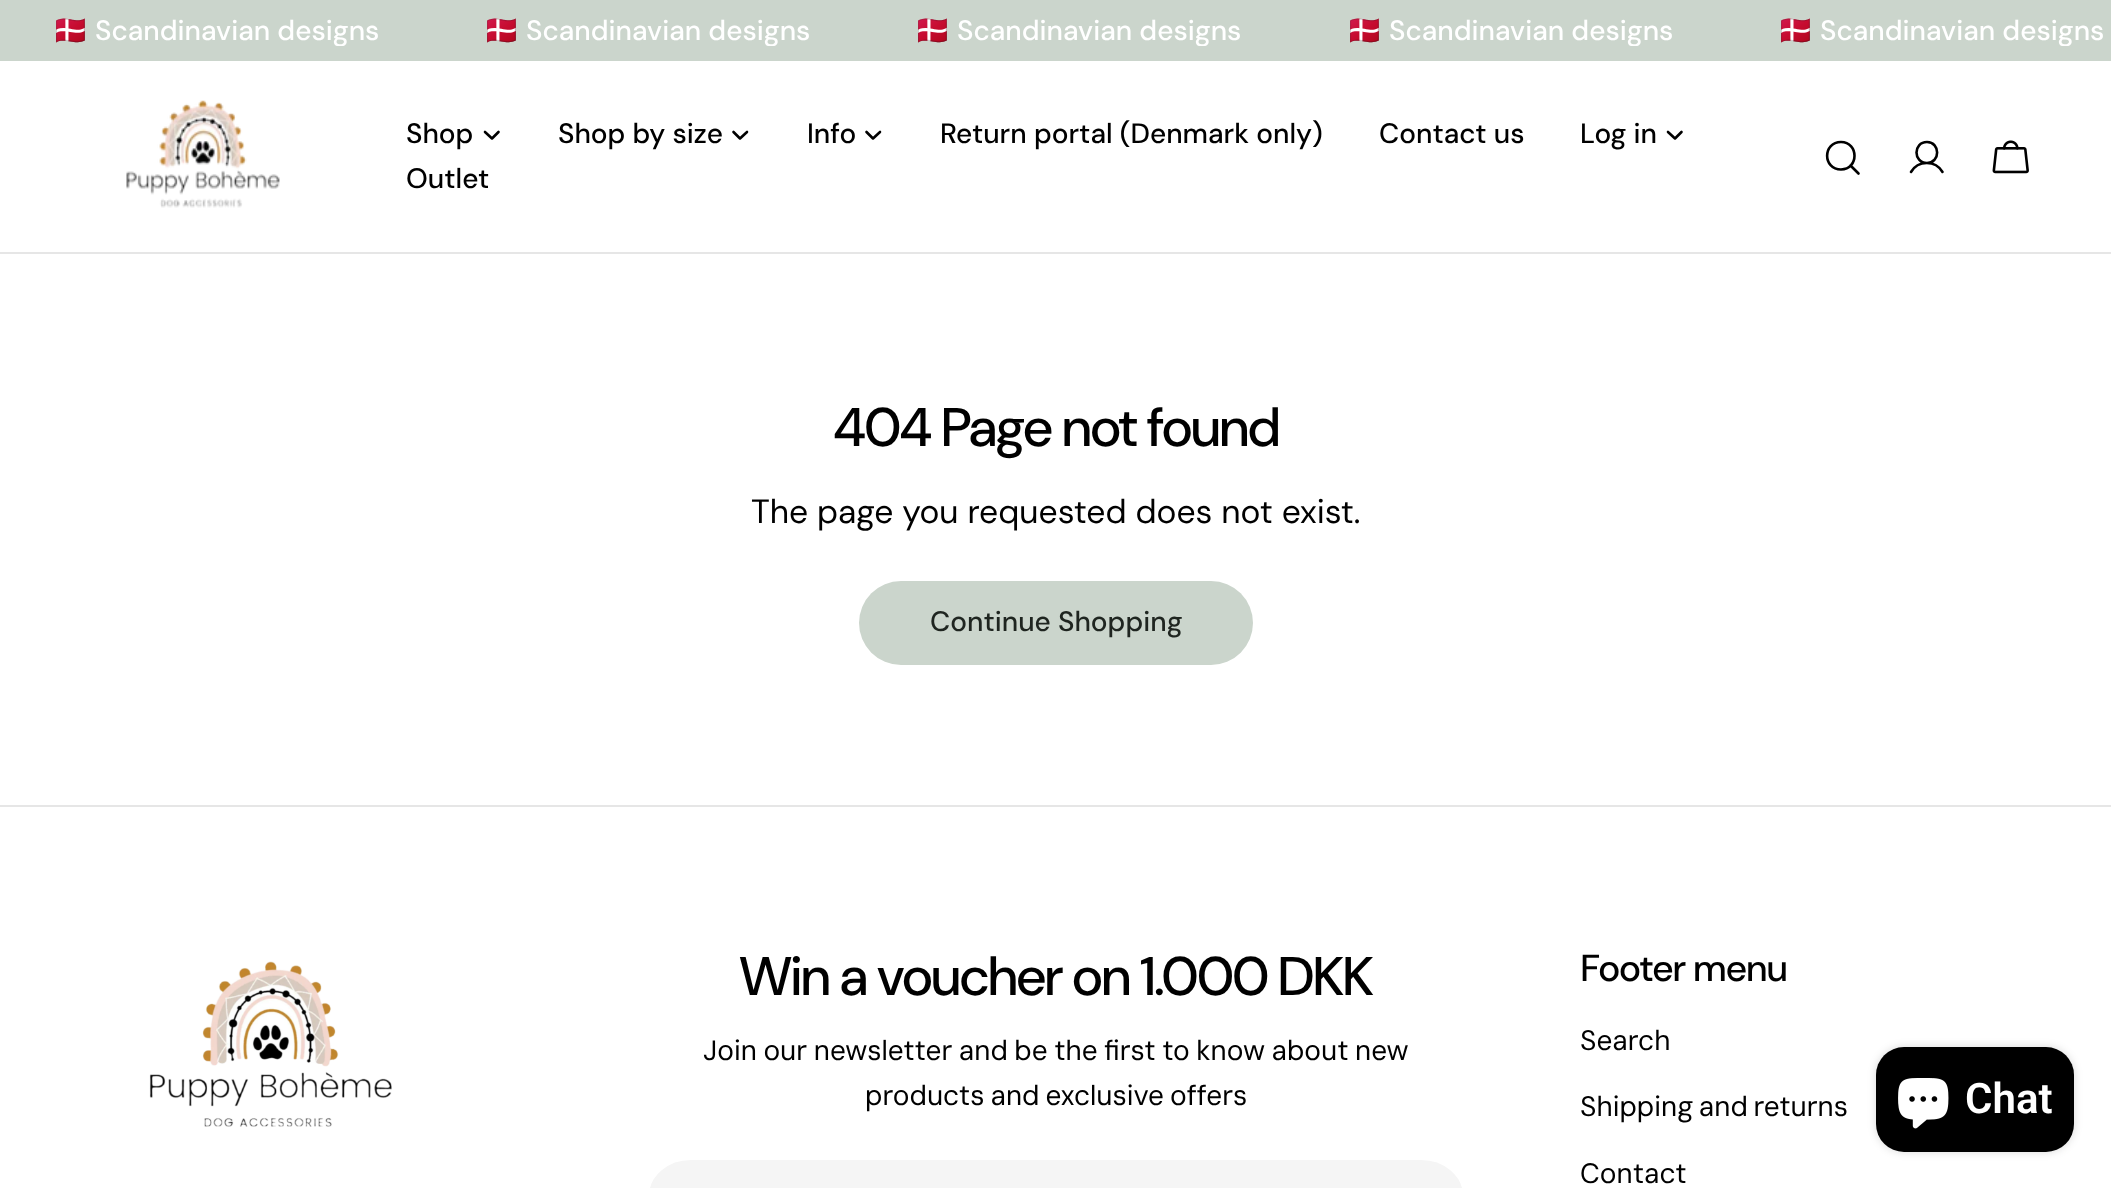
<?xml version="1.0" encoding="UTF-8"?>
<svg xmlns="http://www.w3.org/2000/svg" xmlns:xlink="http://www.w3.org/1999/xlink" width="2111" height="1188">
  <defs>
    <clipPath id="clip1"><rect y="18" width="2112" height="28" /></clipPath>
  </defs>
  <rect width="100%" height="100%" fill="#ffffff" />
  <rect width="2111" height="61" fill="#cbd5cc" />
  <rect y="252" width="2111" height="2" fill="#e6e6e6" />
  <image x="126" y="100" width="154" height="108" xlink:href="image1.png" />
  <path d="M 498.5 132 l -6.5 6.5 l -7 -6.5" fill="none" stroke="#000000" stroke-width="2.6" stroke-linecap="round" stroke-linejoin="round" />
  <path d="M 747 132 l -7 6.5 l -6.5 -6.5" fill="none" stroke="#000000" stroke-width="2.6" stroke-linecap="round" stroke-linejoin="round" />
  <path d="M 880 132 l -7 6.5 l -6.5 -6.5" fill="none" stroke="#000000" stroke-width="2.6" stroke-linecap="round" stroke-linejoin="round" />
  <path d="M 1681.5 132 l -6.5 6.5 l -7 -6.5" fill="none" stroke="#000000" stroke-width="2.6" stroke-linecap="round" stroke-linejoin="round" />
  <path d="M 1841 169.5 c 18 0 18 -27.5 0 -27.5 c -18.5 0 -18.5 27.5 0 27.5 z m 9.5 -4 l 8 8" fill="none" stroke="#000000" stroke-width="2.6" stroke-linecap="round" stroke-linejoin="round" />
  <path d="M 1927 163 c 13.5 0 13.5 -21 0 -21 c -14 0 -14 21 0 21 z m -16 9 c 7 -12 24.5 -12 31.5 0" fill="none" stroke="#000000" stroke-width="2.6" stroke-linecap="round" stroke-linejoin="round" />
  <image x="1992" y="140" width="37" height="34" xlink:href="image2.png" />
  <rect x="859" y="581" width="394" height="84" rx="42" fill="#cbd5cc" />
  <rect y="805" width="2111" height="2" fill="#e6e6e6" />
  <image x="149" y="961" width="243" height="166" xlink:href="image3.png" />
  <rect x="650" y="1161" width="812" height="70" rx="41" fill="#f5f5f5" stroke="#f5f5f5" stroke-width="2" />
  <rect x="1876" y="1047" width="198" height="105" rx="28" fill="#000000" fill-opacity="0.15" filter="blur(4.5px)" />
  <rect x="1876" y="1047" width="198" height="105" rx="28" fill="#000000" />
  <image x="1898" y="1078" width="51" height="51" xlink:href="image4.png" />
  <g clip-path="url(#clip1)">
    <text x="53" y="40" style="font-family: Noto Color Emoji; font-size: 28px; fill: #ffffff">🇩🇰</text>
    <text x="95" y="40" style="font-family: 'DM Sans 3'; font-size: 28px; font-weight: 500; fill: #ffffff">Scandinavian designs</text>
    <text x="484" y="40" style="font-family: Noto Color Emoji; font-size: 28px; fill: #ffffff">🇩🇰</text>
    <text x="526" y="40" style="font-family: 'DM Sans 3'; font-size: 28px; font-weight: 500; fill: #ffffff">Scandinavian designs</text>
    <text x="915" y="40" style="font-family: Noto Color Emoji; font-size: 28px; fill: #ffffff">🇩🇰</text>
    <text x="957" y="40" style="font-family: 'DM Sans 3'; font-size: 28px; font-weight: 500; fill: #ffffff">Scandinavian designs</text>
    <text x="1347" y="40" style="font-family: Noto Color Emoji; font-size: 28px; fill: #ffffff">🇩🇰</text>
    <text x="1389" y="40" style="font-family: 'DM Sans 3'; font-size: 28px; font-weight: 500; fill: #ffffff">Scandinavian designs</text>
    <text x="1778" y="40" style="font-family: Noto Color Emoji; font-size: 28px; fill: #ffffff">🇩🇰</text>
    <text x="1820" y="40" style="font-family: 'DM Sans 3'; font-size: 28px; font-weight: 500; fill: #ffffff">Scandinavian designs</text>
  </g>
  <text x="406" y="143" style="font-family: 'DM Sans 3'; font-size: 28px; font-weight: 500; fill: #000000">Shop</text>
  <text x="558" y="143" style="font-family: 'DM Sans 3'; font-size: 28px; font-weight: 500; fill: #000000">Shop by size</text>
  <text x="807" y="143" style="font-family: 'DM Sans 3'; font-size: 28px; font-weight: 500; fill: #000000">Info</text>
  <text x="940" y="143" style="font-family: 'DM Sans 3'; font-size: 28px; font-weight: 500; fill: #000000">Return portal (Denmark only)</text>
  <text x="1379" y="143" style="font-family: 'DM Sans 3'; font-size: 28px; font-weight: 500; fill: #000000">Contact us</text>
  <text x="1580" y="143" style="font-family: 'DM Sans 3'; font-size: 28px; font-weight: 500; fill: #000000">Log in</text>
  <text x="406" y="188" style="font-family: 'DM Sans 3'; font-size: 28px; font-weight: 500; fill: #000000">Outlet</text>
  <text x="833" y="446" style="font-family: DM Sans; font-size: 54.4px; font-weight: 500; letter-spacing: -2.2px; fill: #000000">404 Page not found</text>
  <text x="751" y="523" style="font-family: DM Sans; font-size: 33.6px; fill: #000000">The page you requested does not exist.</text>
  <text x="930" y="631" style="font-family: 'DM Sans 3'; font-size: 28px; font-weight: 500; fill: #1f2520">Continue Shopping</text>
  <text x="739" y="995" style="font-family: DM Sans; font-size: 54.4px; font-weight: 500; letter-spacing: -2.2px; fill: #000000">Win a voucher on 1.000 DKK</text>
  <text x="703" y="1060" word-spacing="-1" style="font-family: 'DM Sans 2'; font-size: 28px; fill: #000000">Join our newsletter and be the first to know about new</text>
  <text x="865" y="1105" word-spacing="-1.5" style="font-family: 'DM Sans 2'; font-size: 28px; fill: #000000">products and exclusive offers</text>
  <text x="1580" y="981" style="font-family: 'DM Sans 2'; font-size: 37.5px; font-weight: 500; letter-spacing: -1.5px; fill: #000000">Footer menu</text>
  <text x="1580" y="1050" style="font-family: 'DM Sans 2'; font-size: 28px; fill: #000000">Search</text>
  <text x="1580" y="1116" word-spacing="-2" style="font-family: 'DM Sans 2'; font-size: 28px; fill: #000000">Shipping and returns</text>
  <text x="1580" y="1183" style="font-family: 'DM Sans 2'; font-size: 28px; fill: #000000">Contact</text>
  <text x="1965" y="1113" style="font-family: Roboto; font-size: 42px; font-weight: 600; fill: #ffffff">Chat</text>
</svg>
